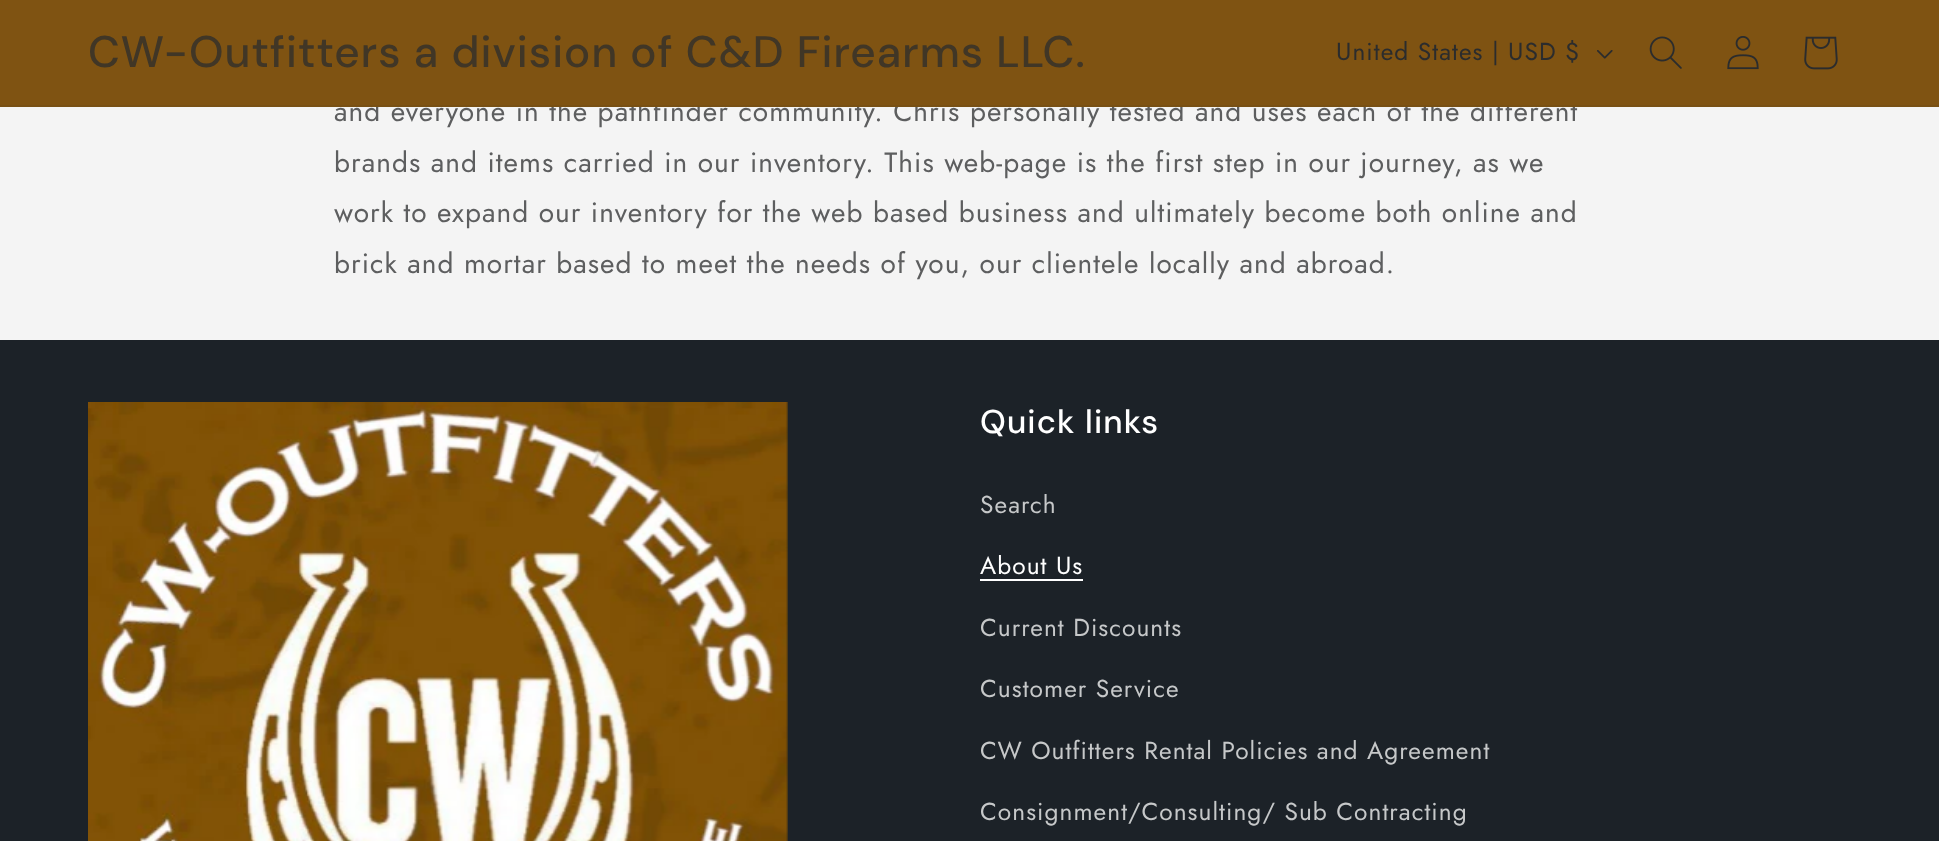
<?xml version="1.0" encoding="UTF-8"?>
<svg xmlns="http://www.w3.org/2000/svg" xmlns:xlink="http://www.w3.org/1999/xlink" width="1939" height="841">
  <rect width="100%" height="100%" fill="#f4f4f4" />
  <rect y="340" width="1939" height="501" fill="#1c2228" />
  <image x="88" y="402" width="700" height="439" xlink:href="image5.png" />
  <rect x="980" y="579" width="103" height="2" fill="#ffffff" />
  <text x="334" y="121" style="font-family: Jost; font-size: 28px; letter-spacing: 1.05px; fill: #5d5e5f">and everyone in the pathfinder community. Chris personally tested and uses each of the different</text>
  <rect width="1939" height="105" fill="#7f5312" />
  <image x="1804" y="36" width="34" height="34" xlink:href="image4.png" />
  <image x="1649" y="36" width="33" height="33" xlink:href="image2.png" />
  <image x="1597" y="50" width="16" height="9" xlink:href="image1.png" />
  <text x="1336" y="60" style="font-family: Jost; font-size: 24.5px; letter-spacing: 1.05px; fill: #2b2c2d">United States | USD $</text>
  <image x="1727" y="36" width="32" height="34" xlink:href="image3.png" />
  <text x="88" y="67" style="font-family: 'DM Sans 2'; font-size: 44.1px; font-weight: 500; letter-spacing: 1.1px; fill: #403626">CW-Outfitters a division of C&amp;D Firearms LLC.</text>
  <rect y="105" width="1939" height="2" fill="#785014" />
  <text x="334" y="172" style="font-family: Jost; font-size: 28px; letter-spacing: 1.05px; fill: #5d5e5f">brands and items carried in our inventory. This web-page is the first step in our journey, as we</text>
  <text x="334" y="222" style="font-family: Jost; font-size: 28px; letter-spacing: 1.05px; fill: #5d5e5f">work to expand our inventory for the web based business and ultimately become both online and</text>
  <text x="334" y="273" style="font-family: Jost; font-size: 28px; letter-spacing: 1.05px; fill: #5d5e5f">brick and mortar based to meet the needs of you, our clientele locally and abroad.</text>
  <text x="980" y="433" style="font-family: DM Sans; font-size: 33px; font-weight: 500; letter-spacing: 1.1px; fill: #ffffff">Quick links</text>
  <text x="980" y="513" style="font-family: Jost; font-size: 24.5px; letter-spacing: 1.05px; fill: #c6c8c9">Search</text>
  <text x="980" y="574" style="font-family: Jost; font-size: 24.5px; letter-spacing: 1.05px; fill: #ffffff">About Us</text>
  <text x="980" y="636" style="font-family: Jost; font-size: 24.5px; letter-spacing: 1.05px; fill: #c6c8c9">Current Discounts</text>
  <text x="980" y="697" style="font-family: Jost; font-size: 24.5px; letter-spacing: 1.05px; fill: #c6c8c9">Customer Service</text>
  <text x="980" y="759" style="font-family: Jost; font-size: 24.5px; letter-spacing: 1.05px; fill: #c6c8c9">CW Outfitters Rental Policies and Agreement</text>
  <text x="980" y="820" style="font-family: Jost; font-size: 24.5px; letter-spacing: 1.05px; fill: #c6c8c9">Consignment/Consulting/ Sub Contracting</text>
</svg>
